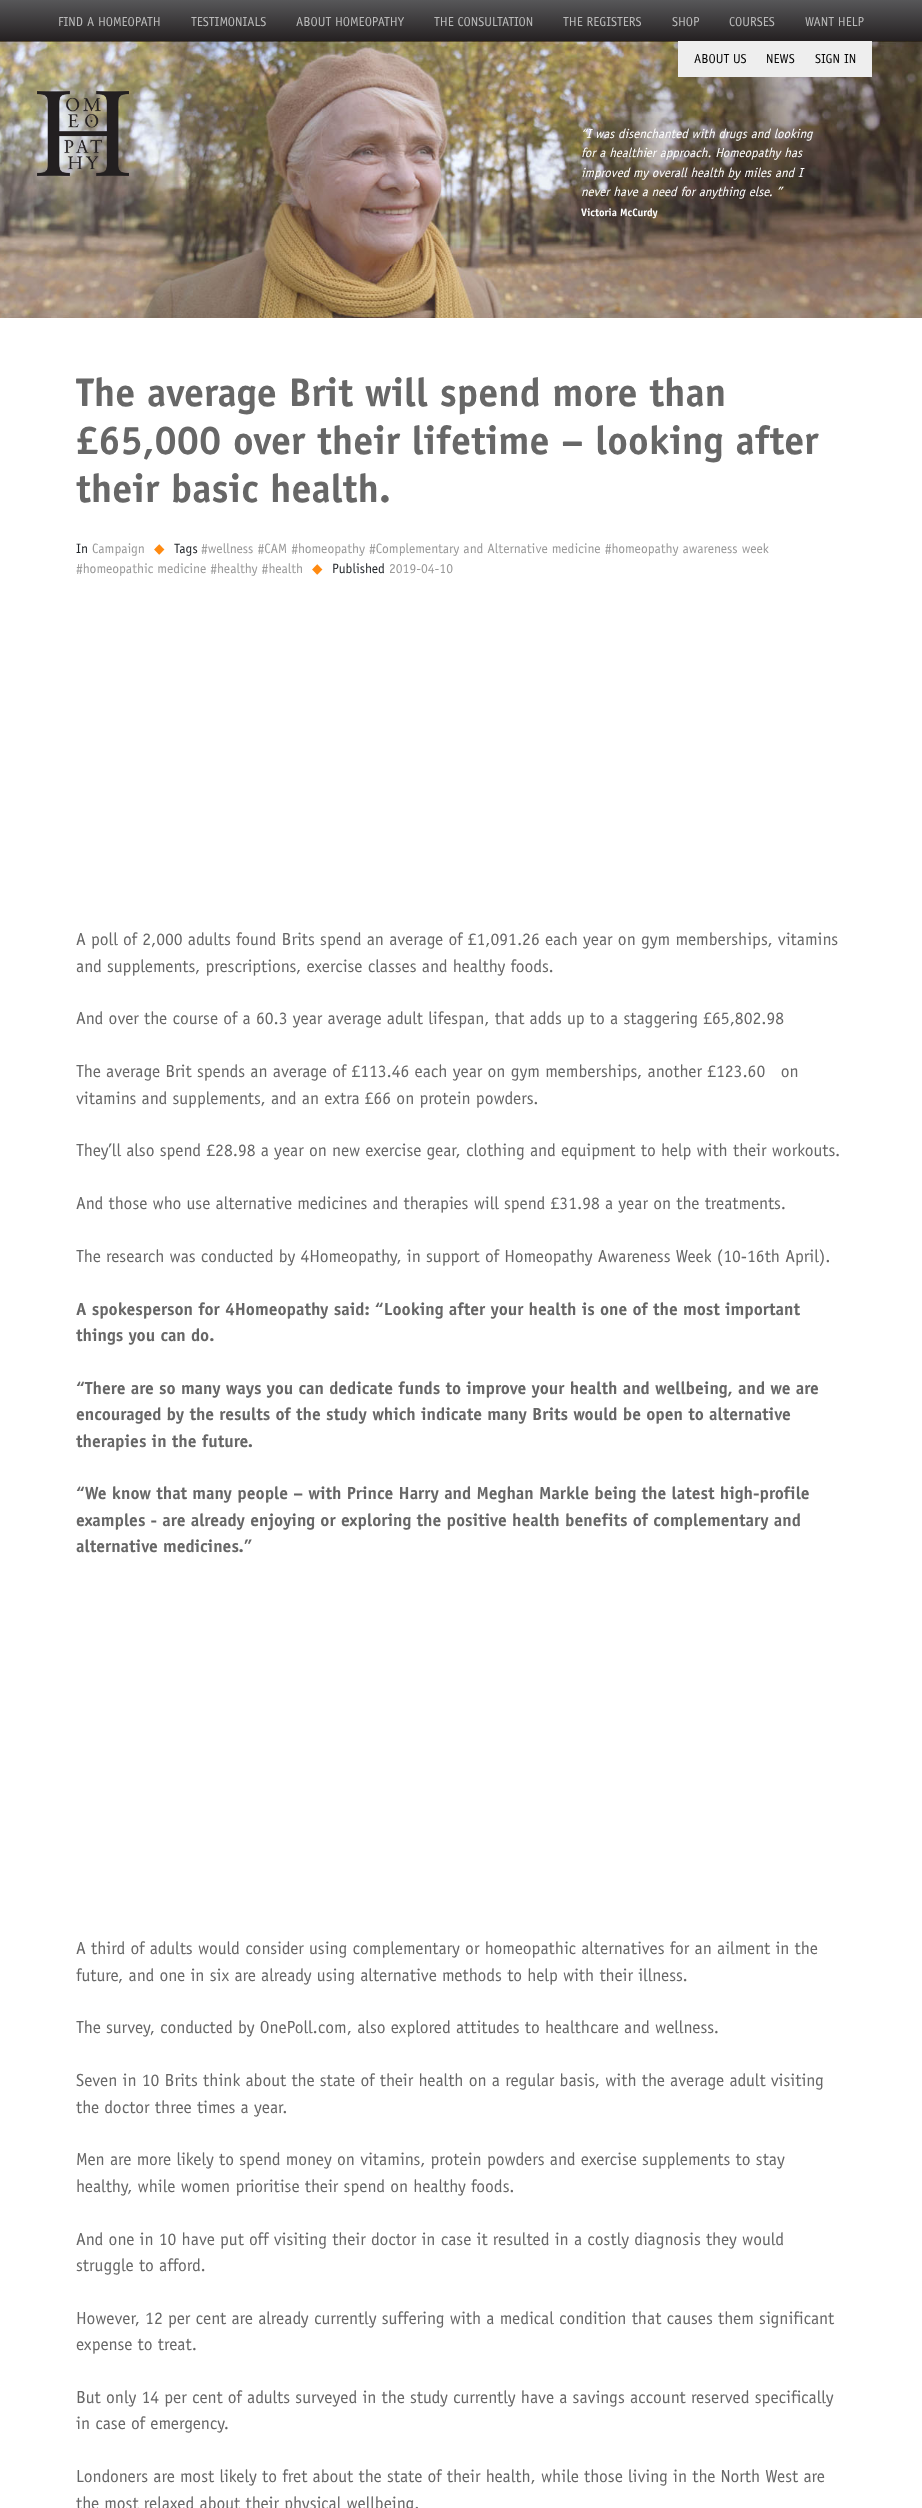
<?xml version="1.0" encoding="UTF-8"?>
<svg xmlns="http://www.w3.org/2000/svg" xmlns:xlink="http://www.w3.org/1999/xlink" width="922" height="2508">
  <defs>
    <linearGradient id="g1" gradientUnits="userSpaceOnUse" x1="0" y1="0" x2="0" y2="41"><stop offset="0" stop-color="#575759" /><stop offset="1" stop-color="#242021" /></linearGradient>
  </defs>
  <rect width="100%" height="100%" fill="#ffffff" />
  <rect width="922" height="41" fill="url(#g1)" />
  <image x="0" y="41" width="922" height="277" xlink:href="image1.png" />
  <rect x="678" y="41" width="194" height="36" fill="#eeeeee" />
  <image x="37" y="91" width="92" height="85" xlink:href="image2.png" />
  <text x="58" y="26" style="font-family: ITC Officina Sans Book; font-size: 13px; fill: #bbbbbb">FIND A HOMEOPATH</text>
  <text x="191" y="26" style="font-family: ITC Officina Sans Book; font-size: 13px; fill: #bbbbbb">TESTIMONIALS</text>
  <text x="296" y="26" style="font-family: ITC Officina Sans Book; font-size: 13px; fill: #bbbbbb">ABOUT HOMEOPATHY</text>
  <text x="434" y="26" style="font-family: ITC Officina Sans Book; font-size: 13px; fill: #bbbbbb">THE CONSULTATION</text>
  <text x="563" y="26" style="font-family: ITC Officina Sans Book; font-size: 13px; fill: #bbbbbb">THE REGISTERS</text>
  <text x="672" y="26" style="font-family: ITC Officina Sans Book; font-size: 13px; fill: #bbbbbb">SHOP</text>
  <text x="729" y="26" style="font-family: ITC Officina Sans Book; font-size: 13px; fill: #bbbbbb">COURSES</text>
  <text x="805" y="26" style="font-family: ITC Officina Sans Book; font-size: 13px; fill: #bbbbbb">WANT HELP</text>
  <text x="694" y="63" style="font-family: ITC Officina Sans Book; font-size: 13px; fill: #000000">ABOUT US</text>
  <text x="766" y="63" style="font-family: ITC Officina Sans Book; font-size: 13px; fill: #000000">NEWS</text>
  <text x="815" y="63" style="font-family: ITC Officina Sans Book; font-size: 13px; fill: #000000">SIGN IN</text>
  <text x="581" y="138" style="font-family: ITC Officina Sans Book; font-size: 13px; font-style: italic; fill: #ffffff">“I was disenchanted with drugs and looking</text>
  <text x="581" y="157" style="font-family: ITC Officina Sans Book; font-size: 13px; font-style: italic; fill: #ffffff">for a healthier approach. Homeopathy has</text>
  <text x="581" y="177" style="font-family: ITC Officina Sans Book; font-size: 13px; font-style: italic; fill: #ffffff">improved my overall health by miles and I</text>
  <text x="581" y="196" style="font-family: ITC Officina Sans Book; font-size: 13px; font-style: italic; fill: #ffffff">never have a need for anything else. ”</text>
  <text x="581" y="216" style="font-family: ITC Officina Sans; font-size: 10.75px; font-weight: bold; fill: #ffffff">Victoria McCurdy</text>
  <text x="76" y="406" style="font-family: ITC Officina Sans; font-size: 40px; font-weight: bold; fill: #676767">The average Brit will spend more than</text>
  <text x="76" y="454" style="font-family: ITC Officina Sans; font-size: 40px; font-weight: bold; fill: #676767">£65,000 over their lifetime – looking after</text>
  <text x="76" y="502" style="font-family: ITC Officina Sans; font-size: 40px; font-weight: bold; fill: #676767">their basic health.</text>
  <text x="76" y="553" style="font-family: ITC Officina Sans Book; font-size: 13.6px; fill: #212529">In</text>
  <text x="92" y="553" style="font-family: ITC Officina Sans Book; font-size: 13.6px; fill: #999999">Campaign</text>
  <text x="154" y="553" style="font-family: DejaVu Sans; font-size: 13.6px; fill: #ff8a11">◆</text>
  <text x="174" y="553" style="font-family: ITC Officina Sans Book; font-size: 13.6px; fill: #212529">Tags</text>
  <text x="201" y="553" style="font-family: ITC Officina Sans Book; font-size: 13.6px; fill: #999999">#wellness #CAM #homeopathy #Complementary and Alternative medicine #homeopathy awareness week</text>
  <text x="76" y="573" style="font-family: ITC Officina Sans Book; font-size: 13.6px; fill: #999999">#homeopathic medicine #healthy #health</text>
  <text x="312" y="573" style="font-family: DejaVu Sans; font-size: 13.6px; fill: #ff8a11">◆</text>
  <text x="332" y="573" style="font-family: ITC Officina Sans Book; font-size: 13.6px; fill: #212529">Published</text>
  <text x="389" y="573" style="font-family: ITC Officina Sans Book; font-size: 13.6px; fill: #999999">2019-04-10</text>
  <text x="76" y="945" style="font-family: ITC Officina Sans Book; font-size: 17.6px; fill: #676767">A poll of 2,000 adults found Brits spend an average of £1,091.26 each year on gym memberships, vitamins</text>
  <text x="76" y="972" style="font-family: ITC Officina Sans Book; font-size: 17.6px; fill: #676767">and supplements, prescriptions, exercise classes and healthy foods.</text>
  <text x="76" y="1024" style="font-family: ITC Officina Sans Book; font-size: 17.6px; fill: #676767">And over the course of a 60.3 year average adult lifespan, that adds up to a staggering £65,802.98</text>
  <text x="76" y="1077" style="font-family: ITC Officina Sans Book; font-size: 17.6px; fill: #676767" xml:space="preserve">The average Brit spends an average of £113.46 each year on gym memberships, another £123.60   on</text>
  <text x="76" y="1104" style="font-family: ITC Officina Sans Book; font-size: 17.6px; fill: #676767">vitamins and supplements, and an extra £66 on protein powders.</text>
  <text x="76" y="1156" style="font-family: ITC Officina Sans Book; font-size: 17.6px; fill: #676767">They’ll also spend £28.98 a year on new exercise gear, clothing and equipment to help with their workouts.</text>
  <text x="76" y="1209" style="font-family: ITC Officina Sans Book; font-size: 17.6px; fill: #676767">And those who use alternative medicines and therapies will spend £31.98 a year on the treatments.</text>
  <text x="76" y="1262" style="font-family: ITC Officina Sans Book; font-size: 17.6px; fill: #676767">The research was conducted by 4Homeopathy, in support of Homeopathy Awareness Week (10-16th April).</text>
  <text x="76" y="1315" style="font-family: ITC Officina Sans; font-size: 17.6px; font-weight: bold; fill: #676767">A spokesperson for 4Homeopathy said: “Looking after your health is one of the most important</text>
  <text x="76" y="1341" style="font-family: ITC Officina Sans; font-size: 17.6px; font-weight: bold; fill: #676767">things you can do.</text>
  <text x="76" y="1394" style="font-family: ITC Officina Sans; font-size: 17.6px; font-weight: bold; fill: #676767">“There are so many ways you can dedicate funds to improve your health and wellbeing, and we are</text>
  <text x="76" y="1420" style="font-family: ITC Officina Sans; font-size: 17.6px; font-weight: bold; fill: #676767">encouraged by the results of the study which indicate many Brits would be open to alternative</text>
  <text x="76" y="1447" style="font-family: ITC Officina Sans; font-size: 17.6px; font-weight: bold; fill: #676767">therapies in the future.</text>
  <text x="76" y="1499" style="font-family: ITC Officina Sans; font-size: 17.6px; font-weight: bold; fill: #676767">“We know that many people – with Prince Harry and Meghan Markle being the latest high-profile</text>
  <text x="76" y="1526" style="font-family: ITC Officina Sans; font-size: 17.6px; font-weight: bold; fill: #676767">examples - are already enjoying or exploring the positive health benefits of complementary and</text>
  <text x="76" y="1552" style="font-family: ITC Officina Sans; font-size: 17.6px; font-weight: bold; fill: #676767">alternative medicines.”</text>
  <text x="76" y="1954" style="font-family: ITC Officina Sans Book; font-size: 17.6px; fill: #676767">A third of adults would consider using complementary or homeopathic alternatives for an ailment in the</text>
  <text x="76" y="1981" style="font-family: ITC Officina Sans Book; font-size: 17.6px; fill: #676767">future, and one in six are already using alternative methods to help with their illness.</text>
  <text x="76" y="2033" style="font-family: ITC Officina Sans Book; font-size: 17.6px; fill: #676767">The survey, conducted by OnePoll.com, also explored attitudes to healthcare and wellness.</text>
  <text x="76" y="2086" style="font-family: ITC Officina Sans Book; font-size: 17.6px; fill: #676767">Seven in 10 Brits think about the state of their health on a regular basis, with the average adult visiting</text>
  <text x="76" y="2113" style="font-family: ITC Officina Sans Book; font-size: 17.6px; fill: #676767">the doctor three times a year.</text>
  <text x="76" y="2165" style="font-family: ITC Officina Sans Book; font-size: 17.6px; fill: #676767">Men are more likely to spend money on vitamins, protein powders and exercise supplements to stay</text>
  <text x="76" y="2192" style="font-family: ITC Officina Sans Book; font-size: 17.6px; fill: #676767">healthy, while women prioritise their spend on healthy foods.</text>
  <text x="76" y="2245" style="font-family: ITC Officina Sans Book; font-size: 17.6px; fill: #676767">And one in 10 have put off visiting their doctor in case it resulted in a costly diagnosis they would</text>
  <text x="76" y="2271" style="font-family: ITC Officina Sans Book; font-size: 17.6px; fill: #676767">struggle to afford.</text>
  <text x="76" y="2324" style="font-family: ITC Officina Sans Book; font-size: 17.6px; fill: #676767">However, 12 per cent are already currently suffering with a medical condition that causes them significant</text>
  <text x="76" y="2350" style="font-family: ITC Officina Sans Book; font-size: 17.6px; fill: #676767">expense to treat.</text>
  <text x="76" y="2403" style="font-family: ITC Officina Sans Book; font-size: 17.6px; fill: #676767">But only 14 per cent of adults surveyed in the study currently have a savings account reserved specifically</text>
  <text x="76" y="2429" style="font-family: ITC Officina Sans Book; font-size: 17.6px; fill: #676767">in case of emergency.</text>
  <text x="76" y="2482" style="font-family: ITC Officina Sans Book; font-size: 17.6px; fill: #676767">Londoners are most likely to fret about the state of their health, while those living in the North West are</text>
  <text x="76" y="2509" style="font-family: ITC Officina Sans Book; font-size: 17.6px; fill: #676767">the most relaxed about their physical wellbeing.</text>
</svg>
